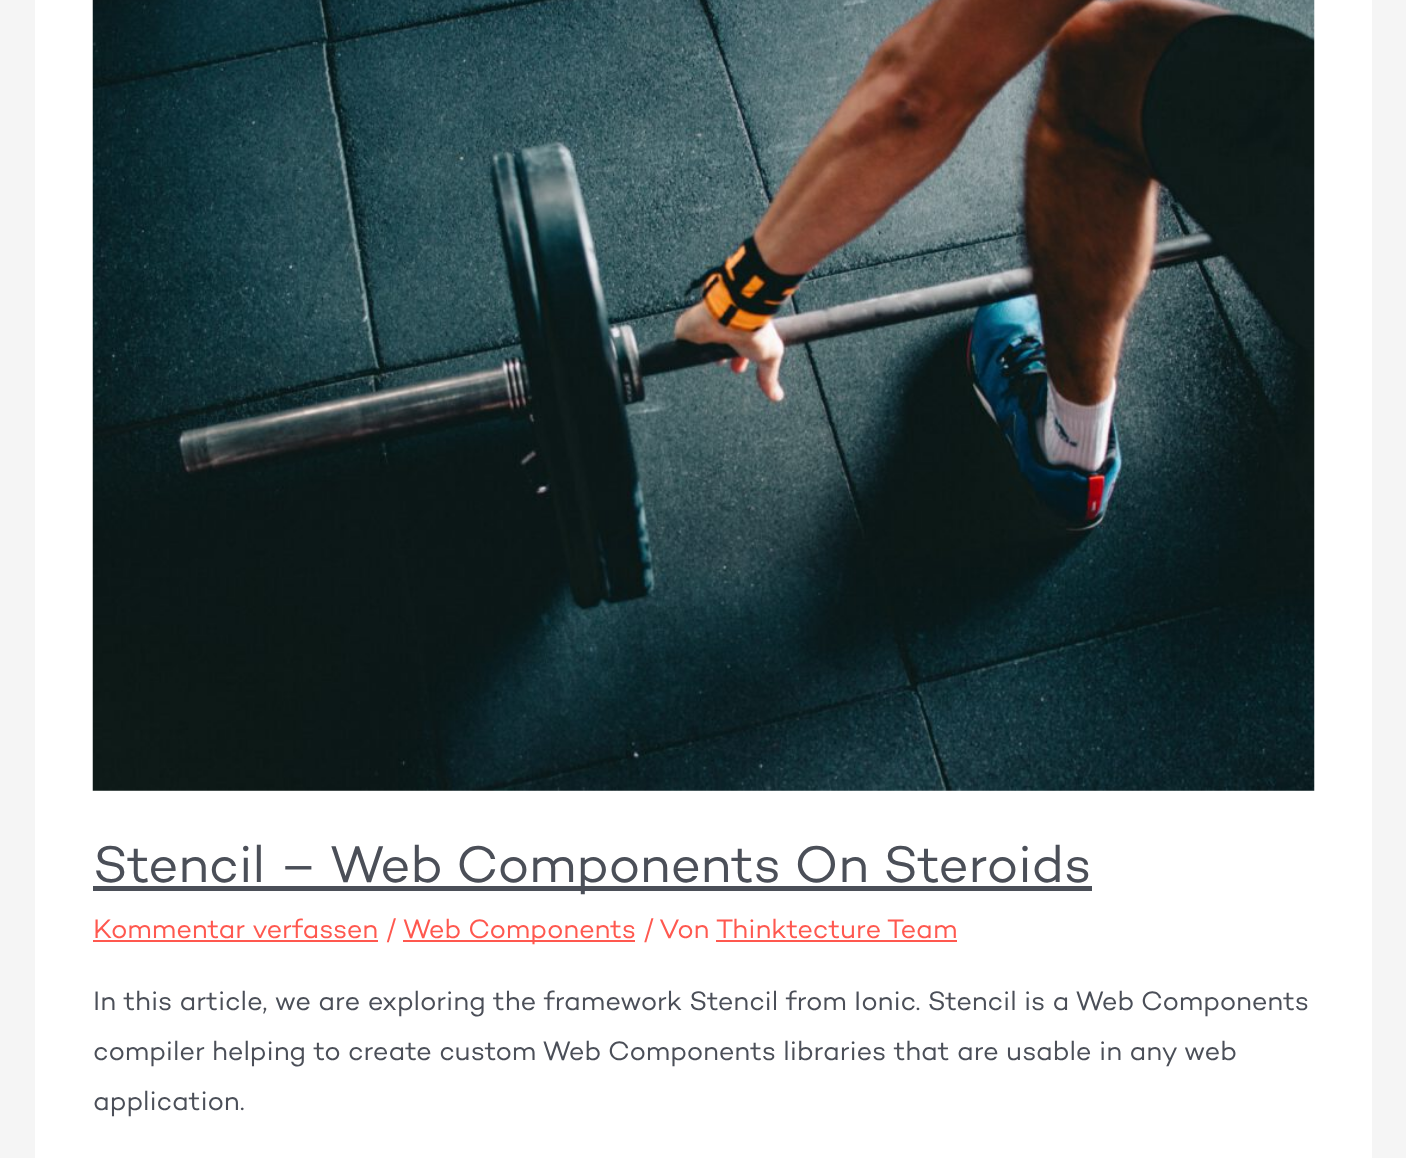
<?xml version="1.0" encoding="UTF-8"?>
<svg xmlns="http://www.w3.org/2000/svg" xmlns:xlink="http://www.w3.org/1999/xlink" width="1406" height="1158">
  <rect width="100%" height="100%" fill="#f5f5f5" />
  <rect x="35" width="1337" height="1158" fill="#ffffff" />
  <image x="92" y="0" width="1223" height="791" xlink:href="image1.png" />
  <rect x="93" y="886" width="999" height="5" fill="#4b4f58" />
  <rect x="93" y="940" width="285" height="2" fill="#ff584f" />
  <rect x="403" y="940" width="232" height="2" fill="#ff584f" />
  <rect x="716" y="940" width="241" height="2" fill="#ff584f" />
  <text x="93" y="882" style="font-family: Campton; font-size: 52.5px; fill: #4b4f58">Stencil – Web Components On Steroids</text>
  <text x="93" y="938" style="font-family: Campton; font-size: 27.15px; fill: #ff584f">Kommentar verfassen /</text>
  <text x="403" y="938" style="font-family: Campton; font-size: 27.15px; fill: #ff584f">Web Components</text>
  <text x="643" y="938" word-spacing="-1" style="font-family: Campton; font-size: 27.15px; fill: #ff584f">/ Von</text>
  <text x="716" y="938" style="font-family: Campton; font-size: 27.15px; fill: #ff584f">Thinktecture Team</text>
  <text x="93" y="1010" style="font-family: Campton; font-size: 27.15px; fill: #4b4f58">In this article, we are exploring the framework Stencil from Ionic. Stencil is a Web Components</text>
  <text x="93" y="1060" style="font-family: Campton; font-size: 27.15px; fill: #4b4f58">compiler helping to create custom Web Components libraries that are usable in any web</text>
  <text x="93" y="1110" style="font-family: Campton; font-size: 27.15px; fill: #4b4f58">application.</text>
</svg>
